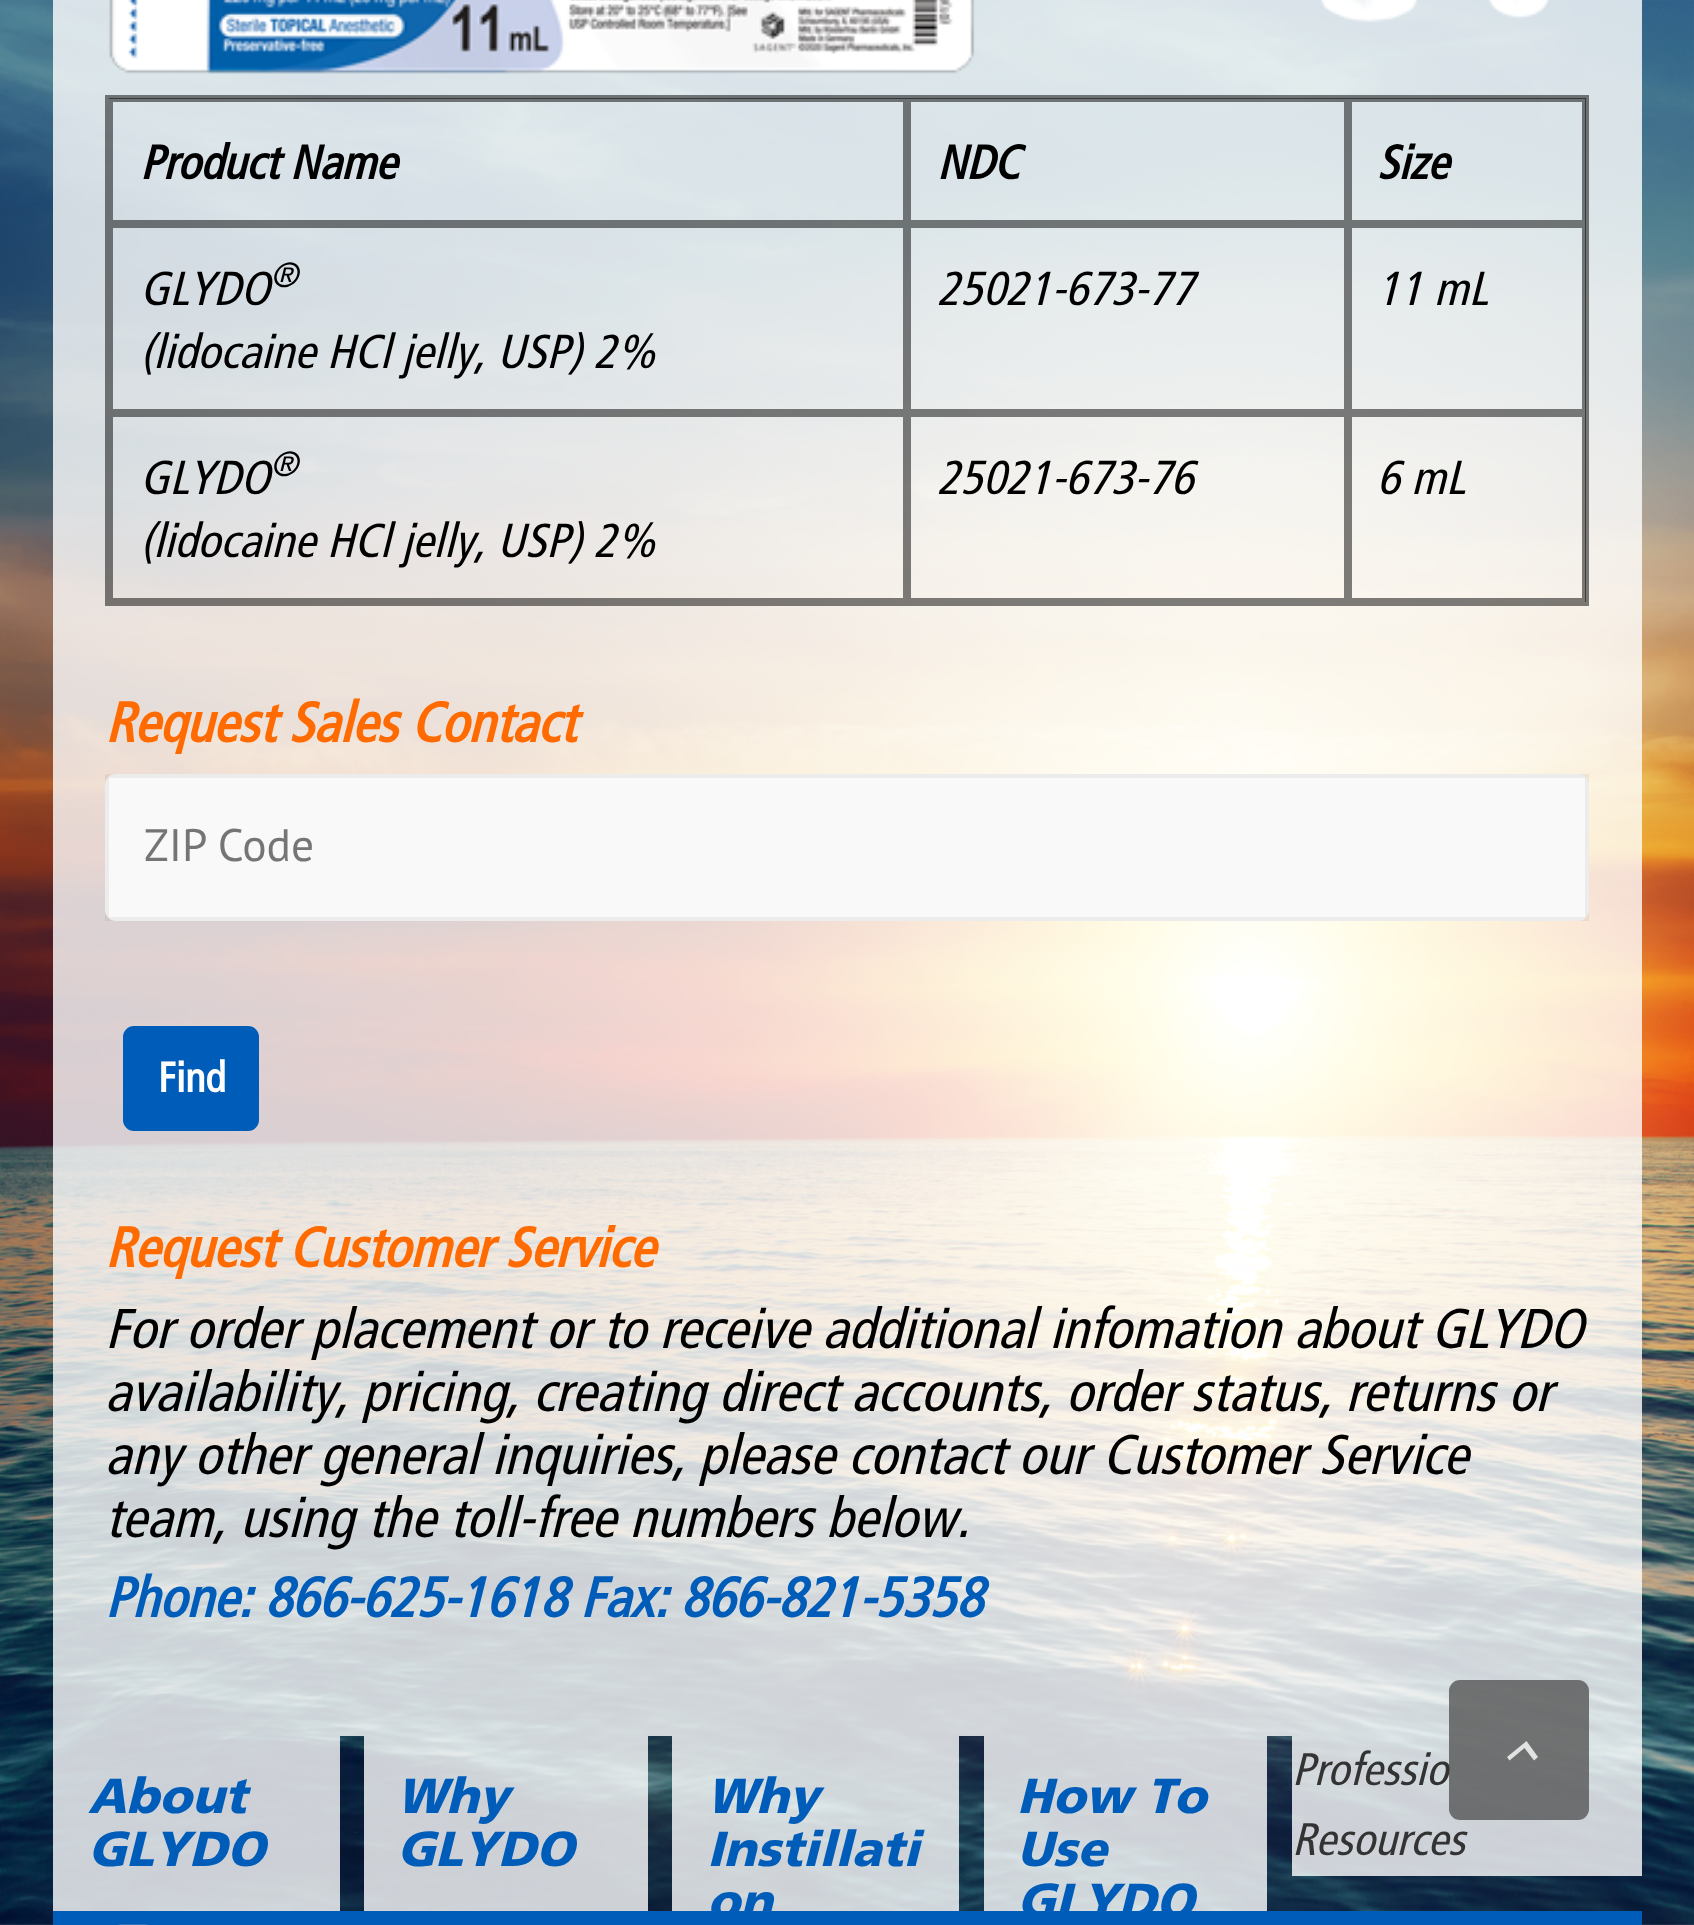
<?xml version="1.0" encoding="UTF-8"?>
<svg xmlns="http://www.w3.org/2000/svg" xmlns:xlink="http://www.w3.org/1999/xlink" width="1694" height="1925">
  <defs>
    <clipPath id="clip1"><rect x="672" y="1736" width="287" height="175" /></clipPath>
    <clipPath id="clip2"><rect x="984" y="1736" width="283" height="175" /></clipPath>
  </defs>
  <rect width="100%" height="100%" fill="#ffffff" />
  <image x="0" y="0" width="1694" height="1925" xlink:href="image1.png" />
  <rect x="53" width="1589" height="1736" fill="#ffffff" fill-opacity="0.8" />
  <image x="108" y="0" width="1441" height="74" xlink:href="image2.png" />
  <rect x="107" y="97" width="1480" height="507" fill="none" stroke="#000000" stroke-opacity="0.5" stroke-width="4" />
  <rect x="111" y="100" width="794" height="122" fill="none" stroke="#000000" stroke-opacity="0.5" stroke-width="4" />
  <rect x="909" y="100" width="437" height="122" fill="none" stroke="#000000" stroke-opacity="0.5" stroke-width="4" />
  <rect x="1350" y="100" width="234" height="122" fill="none" stroke="#000000" stroke-opacity="0.5" stroke-width="4" />
  <rect x="111" y="226" width="794" height="185" fill="none" stroke="#000000" stroke-opacity="0.5" stroke-width="4" />
  <rect x="909" y="226" width="437" height="185" fill="none" stroke="#000000" stroke-opacity="0.5" stroke-width="4" />
  <rect x="1350" y="226" width="234" height="185" fill="none" stroke="#000000" stroke-opacity="0.5" stroke-width="4" />
  <rect x="111" y="415" width="794" height="185" fill="none" stroke="#000000" stroke-opacity="0.5" stroke-width="4" />
  <rect x="909" y="415" width="437" height="185" fill="none" stroke="#000000" stroke-opacity="0.5" stroke-width="4" />
  <rect x="1350" y="415" width="234" height="185" fill="none" stroke="#000000" stroke-opacity="0.5" stroke-width="4" />
  <rect x="105" y="774" width="1484" height="147" rx="11" fill="#f9f9f9" />
  <rect x="107" y="776" width="1480" height="143" fill="none" stroke="#000000" stroke-opacity="0.05" stroke-width="4" />
  <rect x="123" y="1026" width="136" height="105" rx="11" fill="#005cb9" />
  <rect x="53" y="1736" width="287" height="175" fill="#ffffff" fill-opacity="0.8" />
  <rect x="364" y="1736" width="284" height="175" fill="#ffffff" fill-opacity="0.8" />
  <rect x="672" y="1736" width="287" height="175" fill="#ffffff" fill-opacity="0.8" />
  <rect x="984" y="1736" width="283" height="175" fill="#ffffff" fill-opacity="0.8" />
  <rect x="1292" y="1736" width="350" height="140" fill="#ffffff" fill-opacity="0.8" />
  <rect x="53" y="1911" width="1589" height="14" fill="#005cb9" />
  <image x="118" y="1924" width="31" height="1" xlink:href="image3.png" />
  <text x="140" y="179" style="font-family: Frutiger; font-size: 47.6px; font-weight: bold; font-style: italic; fill: #000000">Product Name</text>
  <text x="937" y="179" style="font-family: Frutiger; font-size: 47.6px; font-weight: bold; font-style: italic; fill: #000000">NDC</text>
  <text x="1377" y="179" style="font-family: Frutiger; font-size: 47.6px; font-weight: bold; font-style: italic; fill: #000000">Size</text>
  <text x="140" y="305" style="font-family: Frutiger; font-size: 47.6px; font-style: italic; fill: #000000">GLYDO</text>
  <text x="270" y="287" style="font-family: Frutiger; font-size: 35px; font-style: italic; fill: #000000">®</text>
  <text x="140" y="368" style="font-family: Frutiger; font-size: 47.6px; font-style: italic; fill: #000000">(lidocaine HCl jelly, USP) 2%</text>
  <text x="937" y="305" style="font-family: Frutiger; font-size: 47.6px; font-style: italic; fill: #000000">25021-673-77</text>
  <text x="1377" y="305" style="font-family: Frutiger; font-size: 47.6px; font-style: italic; fill: #000000">11 mL</text>
  <text x="140" y="494" style="font-family: Frutiger; font-size: 47.6px; font-style: italic; fill: #000000">GLYDO</text>
  <text x="270" y="476" style="font-family: Frutiger; font-size: 35px; font-style: italic; fill: #000000">®</text>
  <text x="140" y="557" style="font-family: Frutiger; font-size: 47.6px; font-style: italic; fill: #000000">(lidocaine HCl jelly, USP) 2%</text>
  <text x="937" y="494" style="font-family: Frutiger; font-size: 47.6px; font-style: italic; fill: #000000">25021-673-76</text>
  <text x="1377" y="494" style="font-family: Frutiger; font-size: 47.6px; font-style: italic; fill: #000000">6 mL</text>
  <text x="105" y="742" style="font-family: Frutiger; font-size: 56px; font-weight: bold; font-style: italic; fill: #ff6b00">Request Sales Contact</text>
  <text x="144" y="861" style="font-family: PT Sans; font-size: 45.5px; fill: #757575">ZIP Code</text>
  <text x="158" y="1092" style="font-family: Frutiger; font-size: 42px; font-weight: bold; fill: #ffffff">Find</text>
  <text x="105" y="1267" style="font-family: Frutiger; font-size: 56px; font-weight: bold; font-style: italic; fill: #ff6b00">Request Customer Service</text>
  <text x="105" y="1348" style="font-family: Frutiger; font-size: 56px; font-style: italic; fill: #000000">For order placement or to receive additional infomation about GLYDO</text>
  <text x="105" y="1411" style="font-family: Frutiger; font-size: 56px; font-style: italic; fill: #000000">availability, pricing, creating direct accounts, order status, returns or</text>
  <text x="105" y="1474" style="font-family: Frutiger; font-size: 56px; font-style: italic; fill: #000000">any other general inquiries, please contact our Customer Service</text>
  <text x="105" y="1537" style="font-family: Frutiger; font-size: 56px; font-style: italic; fill: #000000">team, using the toll-free numbers below.</text>
  <text x="105" y="1617" style="font-family: Frutiger; font-size: 56px; font-weight: bold; font-style: italic; fill: #005cb9">Phone: 866-625-1618 Fax: 866-821-5358</text>
  <text x="88" y="1813" style="font-family: Frutiger; font-size: 49px; font-weight: 900; font-style: italic; fill: #005cb9">About</text>
  <text x="88" y="1866" style="font-family: Frutiger; font-size: 49px; font-weight: 900; font-style: italic; fill: #005cb9">GLYDO</text>
  <text x="397" y="1813" style="font-family: Frutiger; font-size: 49px; font-weight: 900; font-style: italic; fill: #005cb9">Why</text>
  <text x="397" y="1866" style="font-family: Frutiger; font-size: 49px; font-weight: 900; font-style: italic; fill: #005cb9">GLYDO</text>
  <text x="707" y="1813" style="font-family: Frutiger; font-size: 49px; font-weight: 900; font-style: italic; fill: #005cb9">Why</text>
  <text x="707" y="1866" style="font-family: Frutiger; font-size: 49px; font-weight: 900; font-style: italic; fill: #005cb9">Instillati</text>
  <g clip-path="url(#clip1)">
    <text x="707" y="1918" style="font-family: Frutiger; font-size: 49px; font-weight: 900; font-style: italic; fill: #005cb9">on</text>
  </g>
  <text x="1017" y="1813" style="font-family: Frutiger; font-size: 49px; font-weight: 900; font-style: italic; fill: #005cb9">How To</text>
  <text x="1017" y="1866" style="font-family: Frutiger; font-size: 49px; font-weight: 900; font-style: italic; fill: #005cb9">Use</text>
  <g clip-path="url(#clip2)">
    <text x="1017" y="1918" style="font-family: Frutiger; font-size: 49px; font-weight: 900; font-style: italic; fill: #005cb9">GLYDO</text>
  </g>
  <text x="1292" y="1785" style="font-family: Frutiger; font-size: 45.5px; font-style: italic; fill: #333333">Professio</text>
  <text x="1292" y="1855" style="font-family: Frutiger; font-size: 45.5px; font-style: italic; fill: #333333">Resources</text>
  <rect x="1449" y="1680" width="140" height="140" rx="11" fill="#555555" fill-opacity="0.8" />
  <path d="M 1507 1757 l 19.5 -16 l 11.5 16 l -4 3.5 l -9.5 -12.5 l -15 12.5 z" fill="#e2e2e3" />
</svg>
